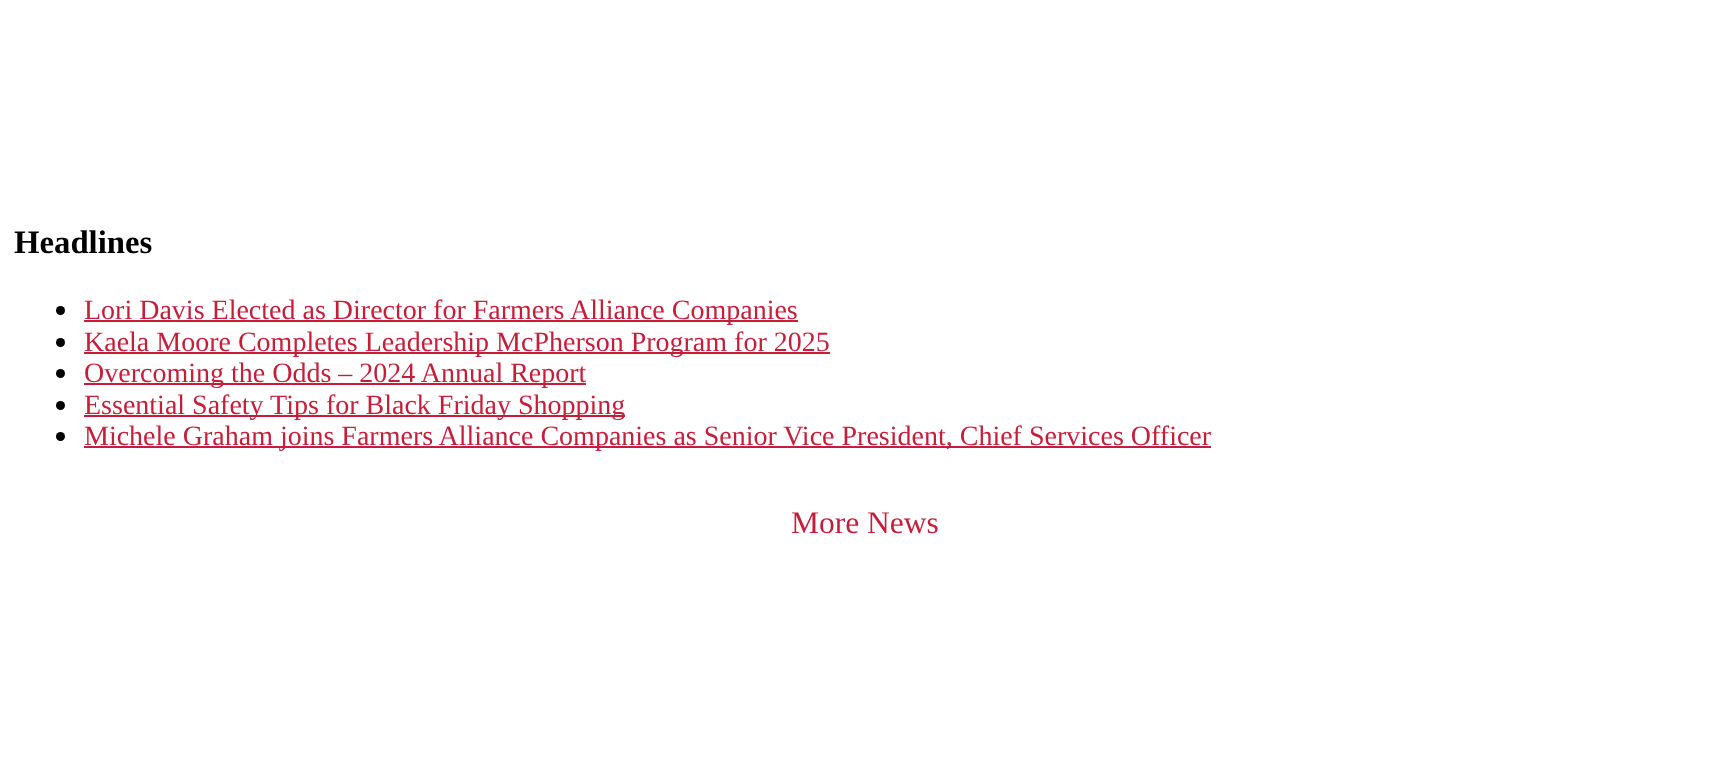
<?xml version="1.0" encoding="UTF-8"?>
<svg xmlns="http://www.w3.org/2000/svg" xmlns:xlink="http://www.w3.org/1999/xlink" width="1730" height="768">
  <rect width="100%" height="100%" fill="#ffffff" />
  <circle cx="60.5" cy="310.5" r="4.5" fill="#000000" />
  <rect x="84" y="320" width="714" height="2" fill="#c41e3a" />
  <circle cx="60.5" cy="342.5" r="4.5" fill="#000000" />
  <rect x="84" y="352" width="746" height="2" fill="#c41e3a" />
  <circle cx="60.5" cy="373.5" r="4.5" fill="#000000" />
  <rect x="84" y="383" width="502" height="2" fill="#c41e3a" />
  <circle cx="60.5" cy="405.5" r="4.5" fill="#000000" />
  <rect x="84" y="415" width="541" height="2" fill="#c41e3a" />
  <circle cx="60.5" cy="436.5" r="4.5" fill="#000000" />
  <rect x="84" y="446" width="1127" height="2" fill="#c41e3a" />
  <text x="14" y="253" style="font-family: Liberation Serif; font-size: 32.75px; font-weight: bold; fill: #000000">Headlines</text>
  <text x="84" y="319" style="font-family: Liberation Serif; font-size: 28px; fill: #c41e3a">Lori Davis Elected as Director for Farmers Alliance Companies</text>
  <text x="84" y="351" style="font-family: Liberation Serif; font-size: 28px; fill: #c41e3a">Kaela Moore Completes Leadership McPherson Program for 2025</text>
  <text x="84" y="382" style="font-family: Liberation Serif; font-size: 28px; fill: #c41e3a">Overcoming the Odds – 2024 Annual Report</text>
  <text x="84" y="414" style="font-family: Liberation Serif; font-size: 28px; fill: #c41e3a">Essential Safety Tips for Black Friday Shopping</text>
  <text x="84" y="445" style="font-family: Liberation Serif; font-size: 28px; fill: #c41e3a">Michele Graham joins Farmers Alliance Companies as Senior Vice President, Chief Services Officer</text>
  <text x="791" y="533" style="font-family: Liberation Serif; font-size: 31.5px; fill: #c41e3a">More News</text>
</svg>
